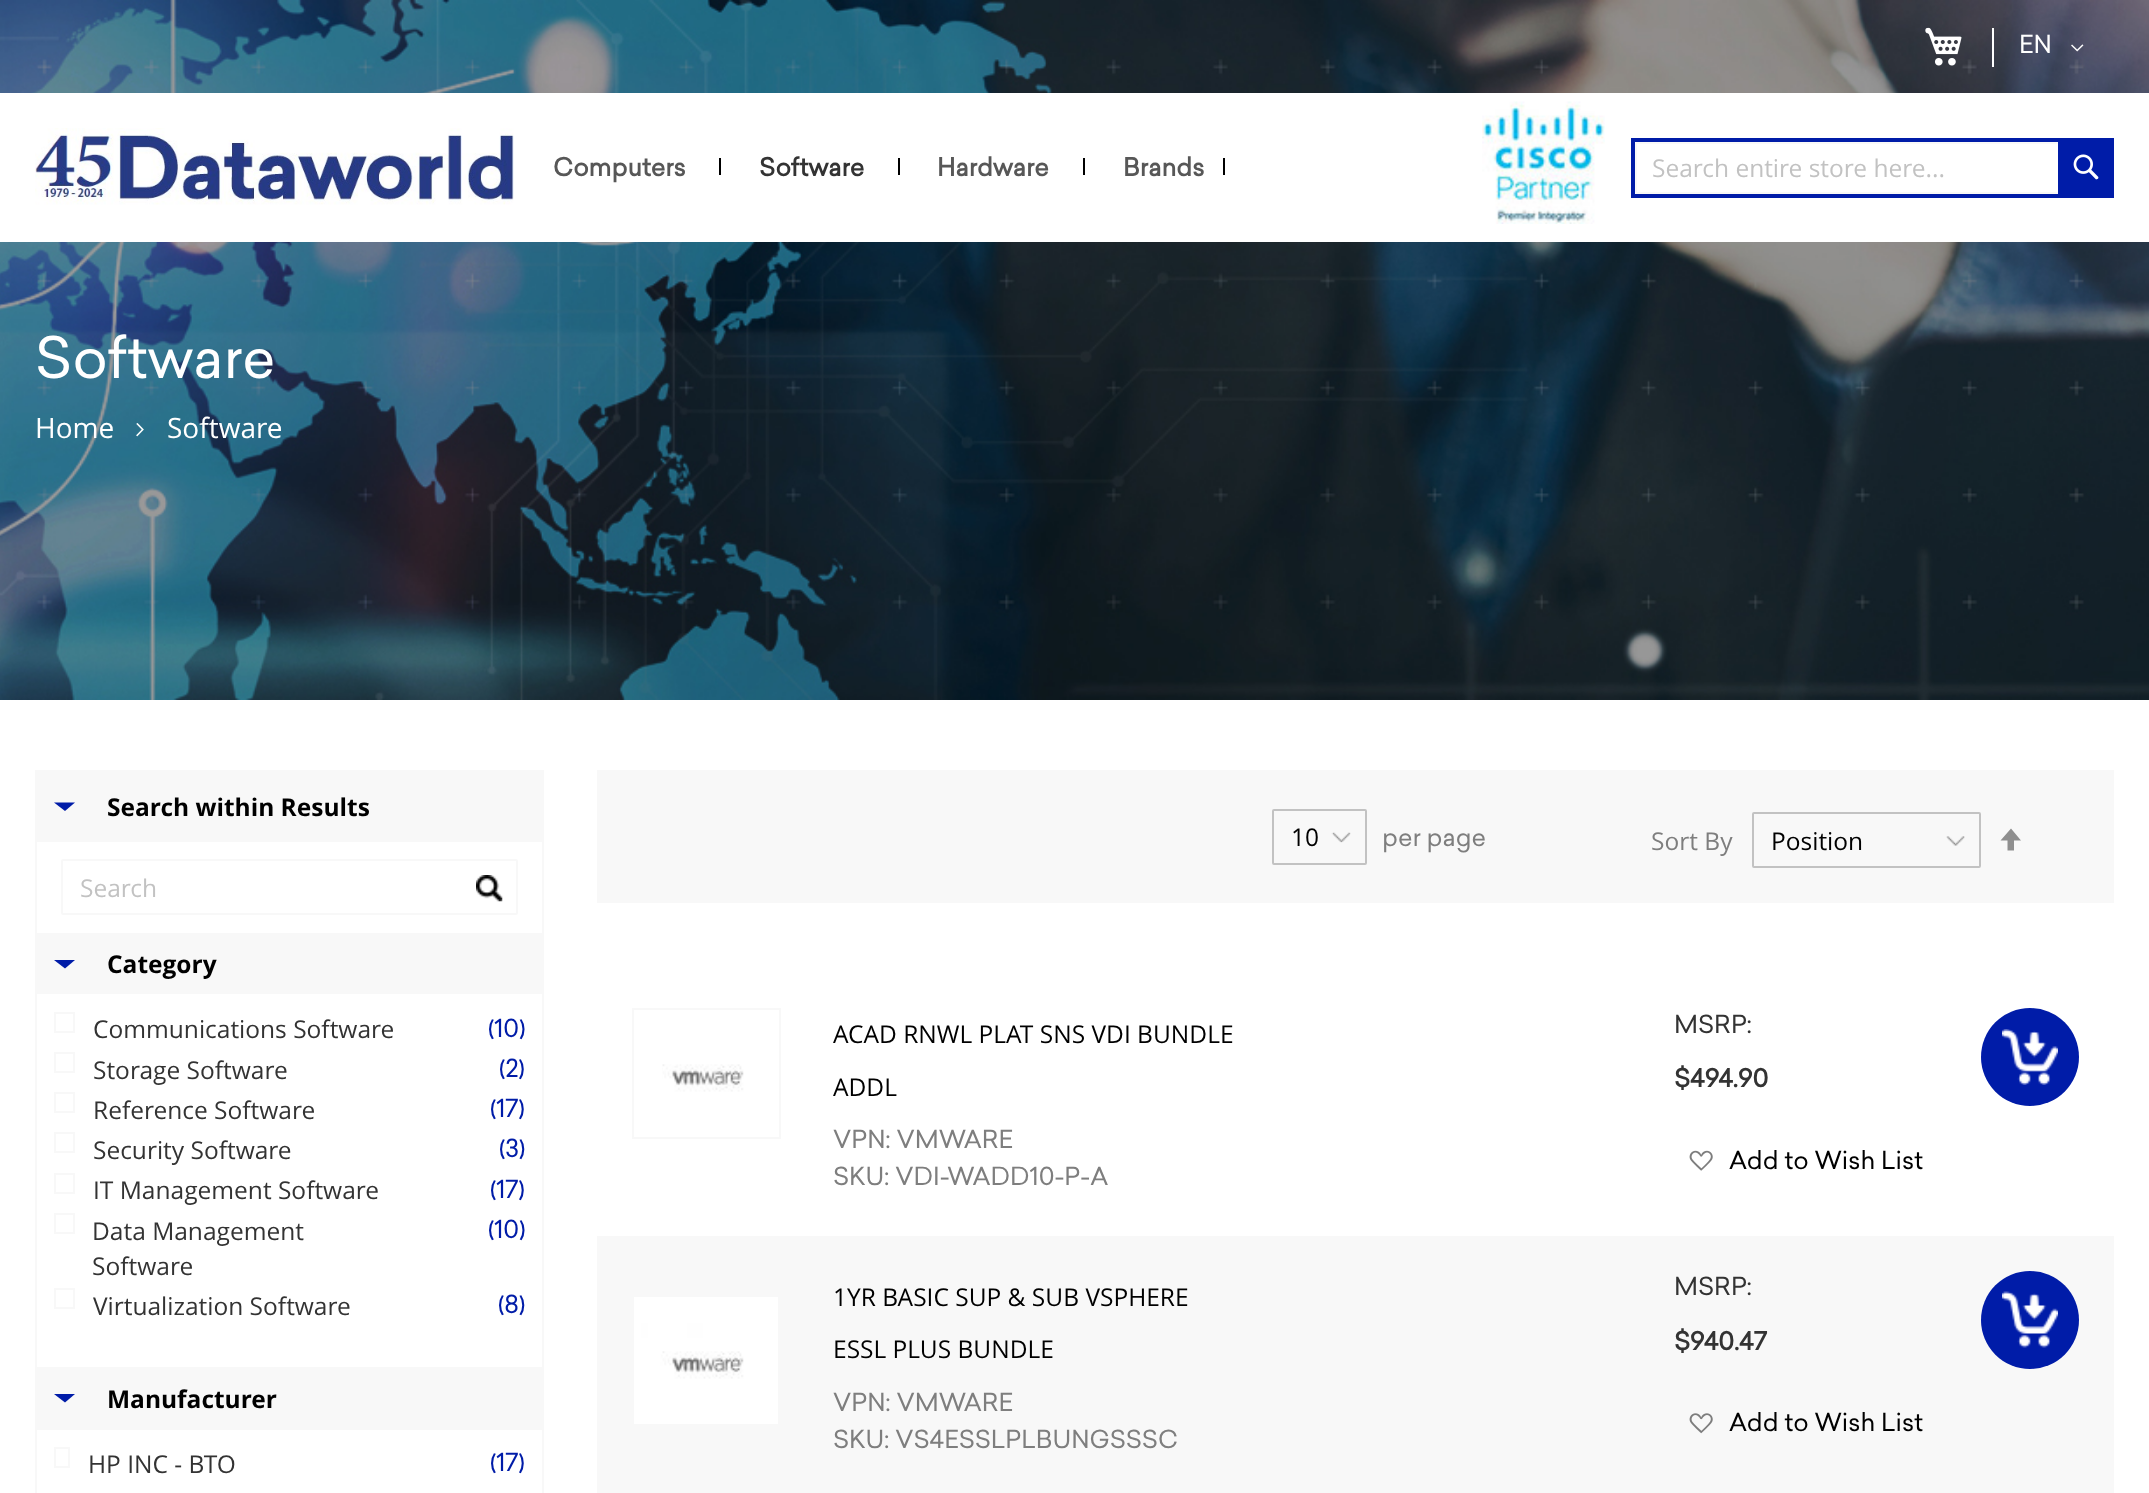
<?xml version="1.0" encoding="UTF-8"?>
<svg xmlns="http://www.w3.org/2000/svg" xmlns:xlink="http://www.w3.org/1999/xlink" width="2149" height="1493">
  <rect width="100%" height="100%" fill="#ffffff" />
  <image x="0" y="0" width="2149" height="700" xlink:href="image1.png" />
  <image x="1925" y="27" width="37" height="39" xlink:href="image2.png" />
  <rect x="1992" y="28" width="2" height="39" fill="#ffffff" />
  <image x="2071" y="44" width="13" height="8" xlink:href="image3.png" />
  <rect y="93" width="2149" height="149" fill="#ffffff" />
  <image x="35" y="128" width="479" height="77" xlink:href="image4.png" />
  <rect x="719" y="158" width="2" height="17" fill="#000000" />
  <rect x="898" y="158" width="2" height="17" fill="#000000" />
  <rect x="1083" y="158" width="2" height="17" fill="#000000" />
  <rect x="1223" y="158" width="2" height="17" fill="#000000" />
  <image x="1482" y="101" width="123" height="123" xlink:href="image5.png" />
  <rect x="1633" y="140" width="479" height="56" fill="none" stroke="#001ca8" stroke-width="4" />
  <rect x="1636" y="143" width="474" height="50" rx="1" fill="none" stroke="#f8f8f8" stroke-width="2" />
  <rect x="2058" y="142" width="53" height="52" fill="#001ca8" />
  <image x="2073" y="154" width="26" height="26" xlink:href="image6.png" />
  <image x="136" y="423" width="8" height="14" xlink:href="image7.png" />
  <rect x="36" y="771" width="507" height="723" fill="none" stroke="#f8f8f8" stroke-width="2" />
  <rect x="37" y="772" width="505" height="70" fill="#f8f8f8" />
  <path d="M 54 802.5 h 21 l -10 8.5 z" fill="#001ca8" />
  <image x="476" y="875" width="27" height="27" xlink:href="image8.png" />
  <rect x="62" y="860" width="455" height="54" rx="1" fill="none" stroke="#f8f8f8" stroke-width="2" />
  <rect x="37" y="933" width="505" height="61" fill="#f8f8f8" />
  <path d="M 54 960 h 21 l -10 8.5 z" fill="#001ca8" />
  <rect x="55" y="1013" width="19" height="19" fill="none" stroke="#f8f8f8" stroke-width="2" />
  <rect x="55" y="1053" width="19" height="19" fill="none" stroke="#f8f8f8" stroke-width="2" />
  <rect x="55" y="1093" width="19" height="19" fill="none" stroke="#f8f8f8" stroke-width="2" />
  <rect x="55" y="1133" width="19" height="19" fill="none" stroke="#f8f8f8" stroke-width="2" />
  <rect x="55" y="1174" width="19" height="19" fill="none" stroke="#f8f8f8" stroke-width="2" />
  <rect x="55" y="1214" width="19" height="19" fill="none" stroke="#f8f8f8" stroke-width="2" />
  <rect x="55" y="1289" width="19" height="19" fill="none" stroke="#f8f8f8" stroke-width="2" />
  <rect x="37" y="1367" width="505" height="63" fill="#f8f8f8" />
  <path d="M 54 1394 h 21 l -10 8.5 z" fill="#001ca8" />
  <rect x="55" y="1448" width="14" height="19" fill="none" stroke="#f8f8f8" stroke-width="2" />
  <rect x="597" y="770" width="1517" height="133" fill="#f8f8f8" />
  <image x="1331" y="832" width="20" height="11" xlink:href="image9.png" />
  <rect x="1273" y="810" width="93" height="54" rx="1" fill="none" stroke="#c2c2c2" stroke-width="2" />
  <image x="1946" y="836" width="19" height="10" xlink:href="image10.png" />
  <rect x="1753" y="813" width="227" height="54" rx="1" fill="none" stroke="#c2c2c2" stroke-width="2" />
  <path d="M 2011 828.5 l -10.5 12 h 7 v 10 h 6.5 v -10 h 7 z" fill="#8f8f8f" />
  <rect x="633" y="1009" width="147" height="129" fill="none" stroke="#f8f8f8" stroke-width="2" />
  <image x="662" y="1064" width="82" height="28" xlink:href="image11.png" />
  <circle cx="2030" cy="1057" r="49" fill="#001ca8" />
  <image x="2002" y="1029" width="56" height="56" xlink:href="image12.png" />
  <image x="1689" y="1150" width="24" height="21" xlink:href="image13.png" />
  <rect x="597" y="1236" width="1517" height="257" fill="#f8f8f8" />
  <image x="634" y="1297" width="144" height="127" xlink:href="image14.png" />
  <circle cx="2030" cy="1320" r="49" fill="#001ca8" />
  <image x="2002" y="1291" width="56" height="57" xlink:href="image15.png" />
  <image x="1689" y="1413" width="24" height="21" xlink:href="image16.png" />
  <text x="2019" y="53" style="font-family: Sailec; font-size: 24.5px; fill: #ffffff">EN</text>
  <text x="553" y="176" style="font-family: Sailec; font-size: 24.5px; font-weight: bold; fill: #575757">Computers</text>
  <text x="759" y="176" style="font-family: Sailec; font-size: 24.5px; font-weight: bold; fill: #333333">Software</text>
  <text x="937" y="176" style="font-family: Sailec; font-size: 24.5px; font-weight: bold; fill: #575757">Hardware</text>
  <text x="1123" y="176" style="font-family: Sailec; font-size: 24.5px; font-weight: bold; fill: #575757">Brands</text>
  <text x="1652" y="177" style="font-family: Open Sans; font-size: 24.5px; fill: #c2c2c2">Search entire store here...</text>
  <text x="35" y="378" style="font-family: Sailec; font-size: 56px; fill: #ffffff">Software</text>
  <text x="35" y="438" style="font-family: Open Sans; font-size: 28px; fill: #ffffff">Home</text>
  <text x="167" y="438" style="font-family: Open Sans; font-size: 28px; fill: #ffffff">Software</text>
  <text x="107" y="816" style="font-family: Open Sans; font-size: 24.5px; font-weight: bold; fill: #000000">Search within Results</text>
  <text x="80" y="897" style="font-family: Open Sans; font-size: 24.5px; fill: #c2c2c2">Search</text>
  <text x="107" y="973" style="font-family: Open Sans; font-size: 24.5px; font-weight: bold; fill: #000000">Category</text>
  <text x="93" y="1038" style="font-family: Open Sans; font-size: 24.5px; fill: #333333">Communications Software</text>
  <text x="488" y="1037" style="font-family: Sailec; font-size: 24.5px; fill: #001ca8">(10)</text>
  <text x="93" y="1079" style="font-family: Open Sans; font-size: 24.5px; fill: #333333">Storage Software</text>
  <text x="499" y="1077" style="font-family: Sailec; font-size: 24.5px; fill: #001ca8">(2)</text>
  <text x="93" y="1119" style="font-family: Open Sans; font-size: 24.5px; fill: #333333">Reference Software</text>
  <text x="490" y="1117" style="font-family: Sailec; font-size: 24.5px; fill: #001ca8">(17)</text>
  <text x="93" y="1159" style="font-family: Open Sans; font-size: 24.5px; fill: #333333">Security Software</text>
  <text x="499" y="1157" style="font-family: Sailec; font-size: 24.5px; fill: #001ca8">(3)</text>
  <text x="93" y="1199" style="font-family: Open Sans; font-size: 24.5px; fill: #333333">IT Management Software</text>
  <text x="490" y="1198" style="font-family: Sailec; font-size: 24.5px; fill: #001ca8">(17)</text>
  <text x="92" y="1240" style="font-family: Open Sans; font-size: 24.5px; fill: #333333">Data Management</text>
  <text x="488" y="1238" style="font-family: Sailec; font-size: 24.5px; fill: #001ca8">(10)</text>
  <text x="92" y="1275" style="font-family: Open Sans; font-size: 24.5px; fill: #333333">Software</text>
  <text x="93" y="1315" style="font-family: Open Sans; font-size: 24.5px; fill: #333333">Virtualization Software</text>
  <text x="498" y="1313" style="font-family: Sailec; font-size: 24.5px; fill: #001ca8">(8)</text>
  <text x="107" y="1408" style="font-family: Open Sans; font-size: 24.5px; font-weight: bold; fill: #000000">Manufacturer</text>
  <text x="88" y="1473" style="font-family: Open Sans; font-size: 24.5px; fill: #333333">HP INC - BTO</text>
  <text x="490" y="1471" style="font-family: Sailec; font-size: 24.5px; fill: #001ca8">(17)</text>
  <text x="1291" y="846" style="font-family: Open Sans; font-size: 24.5px; fill: #000000">10</text>
  <text x="1382" y="846" style="font-family: Sailec; font-size: 24.5px; fill: #7e7e7e">per page</text>
  <text x="1651" y="850" style="font-family: Open Sans; font-size: 24.5px; fill: #7e7e7e">Sort By</text>
  <text x="1771" y="850" style="font-family: Open Sans; font-size: 24.5px; fill: #000000">Position</text>
  <text x="833" y="1043" style="font-family: Open Sans; font-size: 24.5px; fill: #000000">ACAD RNWL PLAT SNS VDI BUNDLE</text>
  <text x="833" y="1096" style="font-family: Open Sans; font-size: 24.5px; fill: #000000">ADDL</text>
  <text x="833" y="1148" style="font-family: Sailec; font-size: 24.5px; fill: #7e7e7e">VPN: VMWARE</text>
  <text x="833" y="1185" style="font-family: Sailec; font-size: 24.5px; fill: #7e7e7e">SKU: VDI-WADD10-P-A</text>
  <text x="1674" y="1033" style="font-family: Sailec; font-size: 24.5px; fill: #333333">MSRP:</text>
  <text x="1674" y="1087" style="font-family: Sailec; font-size: 24.5px; font-weight: bold; fill: #333333">$494.90</text>
  <text x="1729" y="1169" style="font-family: Sailec; font-size: 24.5px; fill: #000000">Add to Wish List</text>
  <text x="833" y="1306" style="font-family: Open Sans; font-size: 24.5px; fill: #000000">1YR BASIC SUP &amp; SUB VSPHERE</text>
  <text x="833" y="1358" style="font-family: Open Sans; font-size: 24.5px; fill: #000000">ESSL PLUS BUNDLE</text>
  <text x="833" y="1411" style="font-family: Sailec; font-size: 24.5px; fill: #7e7e7e">VPN: VMWARE</text>
  <text x="833" y="1448" style="font-family: Sailec; font-size: 24.5px; fill: #7e7e7e">SKU: VS4ESSLPLBUNGSSSC</text>
  <text x="1674" y="1295" style="font-family: Sailec; font-size: 24.5px; fill: #333333">MSRP:</text>
  <text x="1674" y="1350" style="font-family: Sailec; font-size: 24.5px; font-weight: bold; fill: #333333">$940.47</text>
  <text x="1729" y="1431" style="font-family: Sailec; font-size: 24.5px; fill: #000000">Add to Wish List</text>
</svg>
